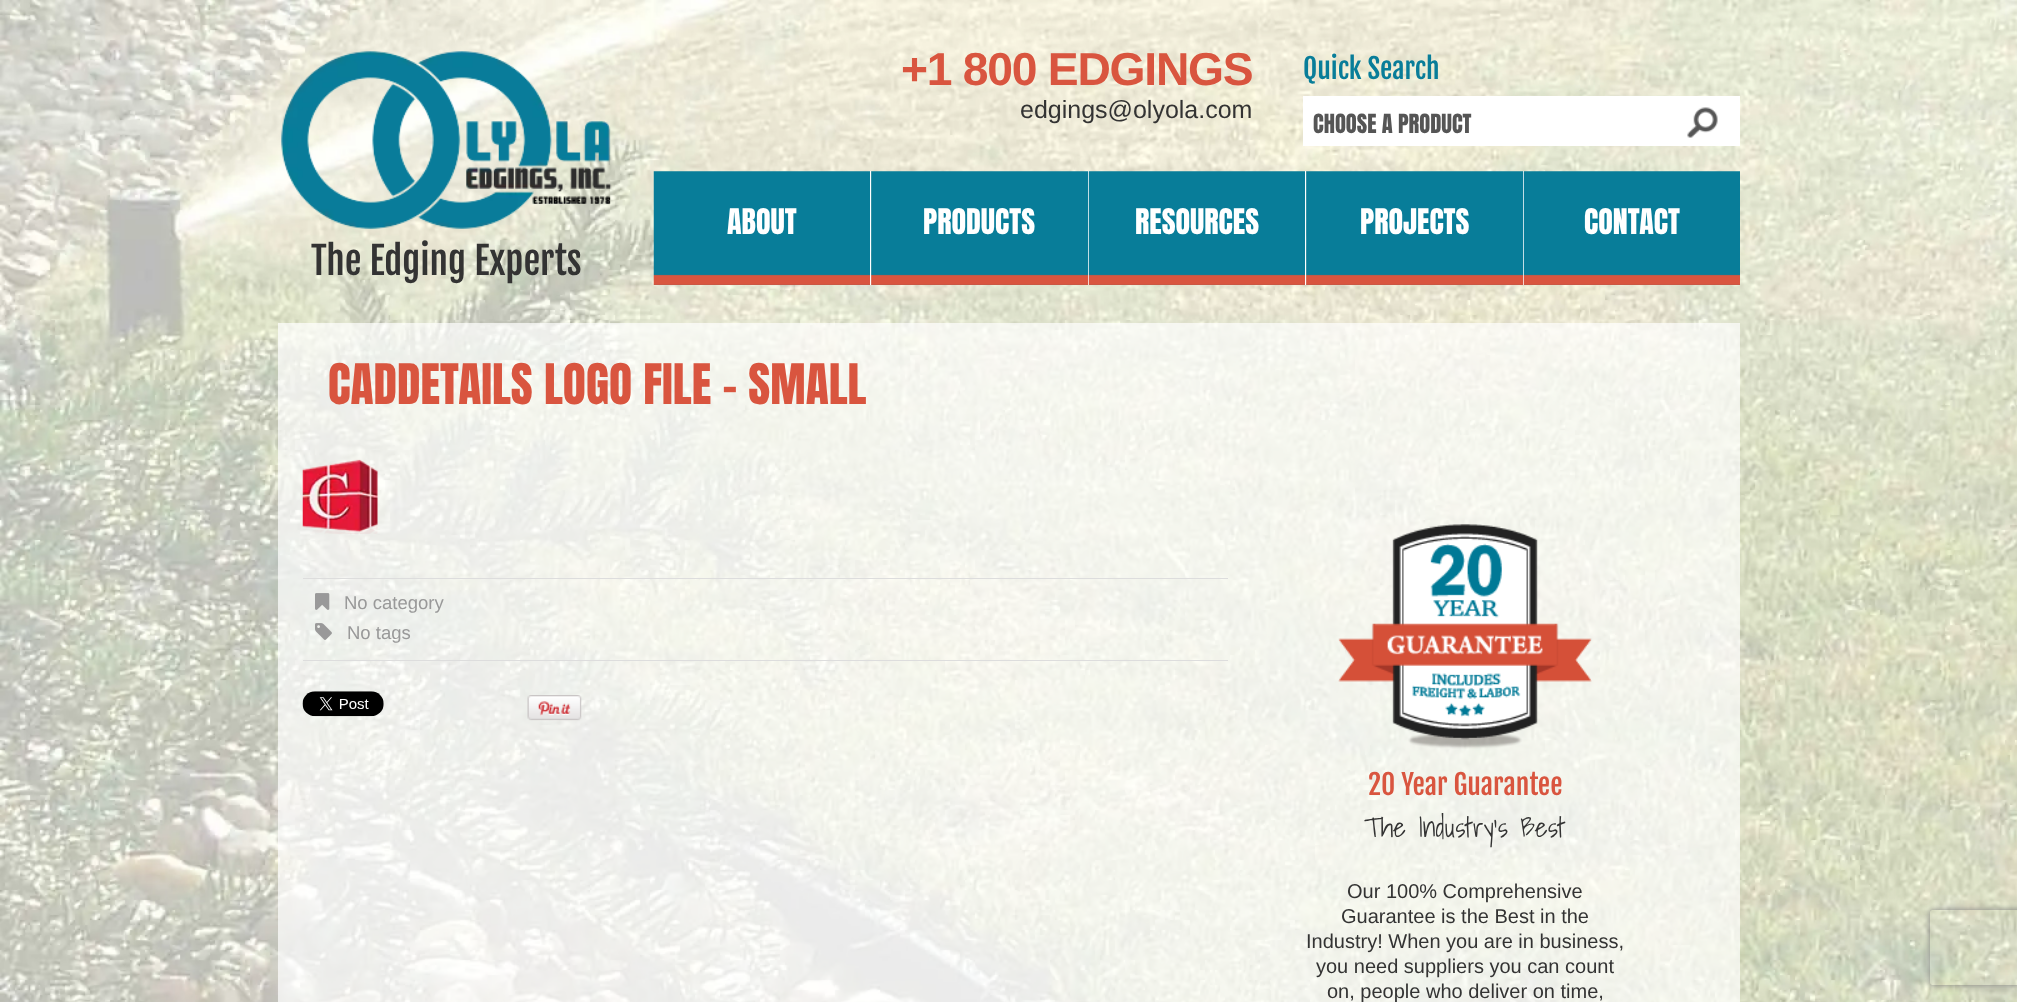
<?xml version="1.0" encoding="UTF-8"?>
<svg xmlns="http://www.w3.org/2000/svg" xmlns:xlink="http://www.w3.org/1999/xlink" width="2017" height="1002">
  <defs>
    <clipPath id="clip1"><path d="M 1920 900 h 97 v 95 h -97 z m 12.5 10 h 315 c 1.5 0 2.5 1 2.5 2.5 v 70 c 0 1.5 -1 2.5 -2.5 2.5 h -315 c -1.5 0 -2.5 -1 -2.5 -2.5 v -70 c 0 -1.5 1 -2.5 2.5 -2.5 z" clip-rule="evenodd" /></clipPath>
  </defs>
  <rect width="100%" height="100%" fill="#ffffff" />
  <image x="0" y="0" width="2017" height="1002" xlink:href="image1.png" />
  <rect x="1303" y="96" width="437" height="50" fill="#ffffff" />
  <image x="1687" y="107" width="31" height="31" xlink:href="image2.png" />
  <image x="653" y="171" width="219" height="114" xlink:href="image3.png" />
  <rect x="870" y="171" width="1" height="114" fill="#ffffff" />
  <image x="871" y="171" width="217" height="114" xlink:href="image4.png" />
  <rect x="1088" y="171" width="1" height="114" fill="#ffffff" />
  <image x="1088" y="171" width="219" height="114" xlink:href="image5.png" />
  <rect x="1305" y="171" width="1" height="114" fill="#ffffff" />
  <image x="1306" y="171" width="217" height="114" xlink:href="image6.png" />
  <rect x="1523" y="171" width="1" height="114" fill="#ffffff" />
  <image x="1523" y="171" width="217" height="114" xlink:href="image7.png" />
  <image x="281" y="51" width="331" height="178" xlink:href="image8.png" />
  <rect x="278" y="323" width="1462" height="679" fill="#ffffff" fill-opacity="0.7" />
  <image x="302" y="459" width="76" height="75" xlink:href="image9.png" />
  <rect x="303" y="578" width="925" height="1" fill="#dddddd" />
  <rect x="303" y="660" width="925" height="1" fill="#dddddd" />
  <image x="315" y="593" width="15" height="17" xlink:href="image10.png" />
  <image x="315" y="623" width="17" height="17" xlink:href="image11.png" />
  <image x="302" y="691" width="82" height="26" xlink:href="image12.png" />
  <image x="527" y="695" width="55" height="26" xlink:href="image13.png" />
  <image x="1338" y="524" width="254" height="225" xlink:href="image14.png" />
  <g clip-path="url(#clip1)">
    <rect x="1930" y="910" width="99" height="75" rx="2.5" fill="#808080" filter="blur(3px)" />
  </g>
  <text x="901" y="85" style="font-family: Liberation Sans; font-size: 46.25px; font-weight: bold; letter-spacing: -1.25px; fill: #d9553f">+1 800 EDGINGS</text>
  <text x="1020" y="118" style="font-family: Liberation Sans; font-size: 25px; fill: #333333">edgings@olyola.com</text>
  <text x="1303" y="79" style="font-family: Fjalla One; font-size: 27.5px; fill: #087d99">Quick Search</text>
  <text x="1313" y="133" style="font-family: Anton; font-size: 22.5px; fill: #555555">CHOOSE A PRODUCT</text>
  <text x="727" y="234" style="font-family: Anton; font-size: 30px; fill: #ffffff">ABOUT</text>
  <text x="923" y="234" style="font-family: Anton; font-size: 30px; fill: #ffffff">PRODUCTS</text>
  <text x="1135" y="234" style="font-family: Anton; font-size: 30px; fill: #ffffff">RESOURCES</text>
  <text x="1360" y="234" style="font-family: Anton; font-size: 30px; fill: #ffffff">PROJECTS</text>
  <text x="1584" y="234" style="font-family: Anton; font-size: 30px; fill: #ffffff">CONTACT</text>
  <text x="311" y="275" style="font-family: Fjalla One; font-size: 37.5px; fill: #333333">The Edging Experts</text>
  <text x="328" y="404" style="font-family: Anton; font-size: 47.5px; fill: #d9553f">CADDETAILS LOGO FILE – SMALL</text>
  <text x="344" y="609" style="font-family: Liberation Sans; font-size: 18.5px; fill: #999999">No category</text>
  <text x="347" y="639" style="font-family: Liberation Sans; font-size: 18.5px; fill: #999999">No tags</text>
  <text x="1368" y="795" style="font-family: Fjalla One; font-size: 27.5px; fill: #d9553f">20 Year Guarantee</text>
  <text x="1364" y="837" style="font-family: Shadows Into Light; font-size: 27.5px; font-weight: 300; fill: #333333">The Industry's Best</text>
  <text x="1347" y="898" style="font-family: Liberation Sans; font-size: 20px; fill: #333333">Our 100% Comprehensive</text>
  <text x="1341" y="923" style="font-family: Liberation Sans; font-size: 20px; fill: #333333">Guarantee is the Best in the</text>
  <text x="1306" y="948" style="font-family: Liberation Sans; font-size: 20px; fill: #333333">Industry! When you are in business,</text>
  <text x="1316" y="973" style="font-family: Liberation Sans; font-size: 20px; fill: #333333">you need suppliers you can count</text>
  <text x="1327" y="998" style="font-family: Liberation Sans; font-size: 20px; fill: #333333">on, people who deliver on time,</text>
</svg>
